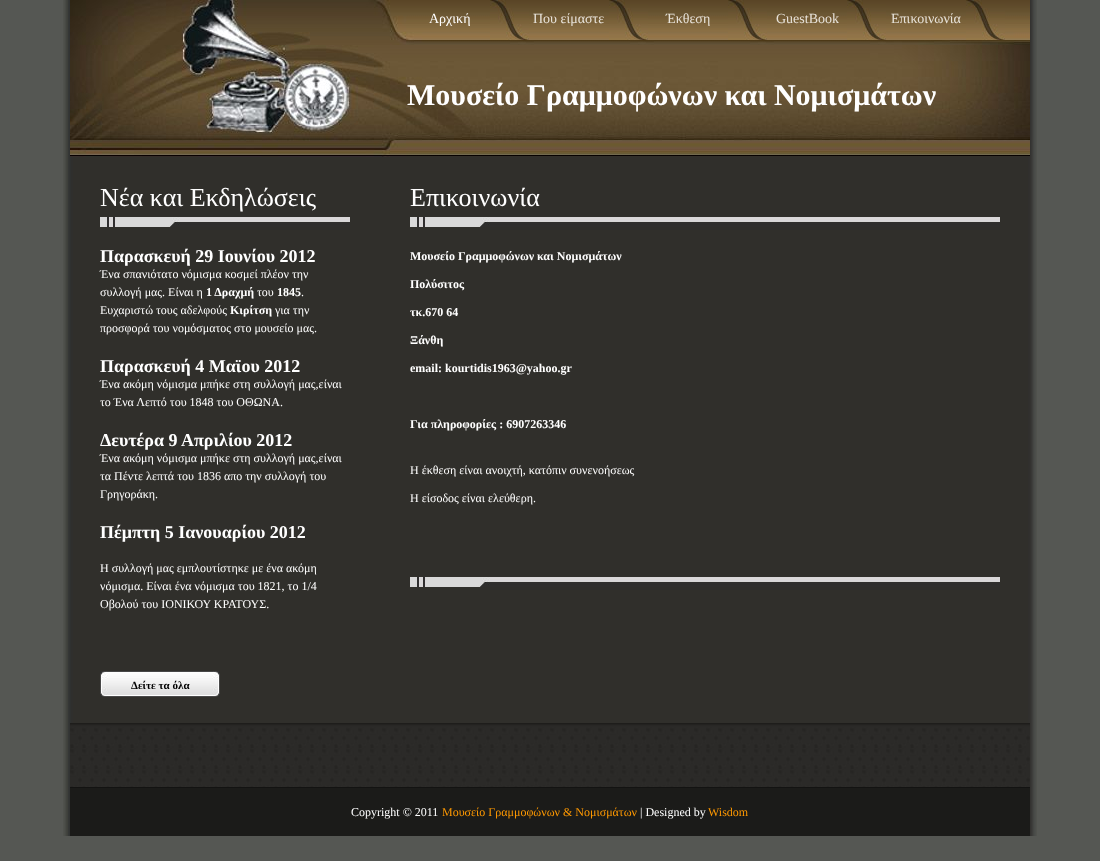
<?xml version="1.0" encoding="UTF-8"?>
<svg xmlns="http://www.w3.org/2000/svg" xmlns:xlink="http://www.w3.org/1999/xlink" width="1100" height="861">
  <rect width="100%" height="100%" fill="#555753" />
  <image x="63" y="0" width="974" height="836" xlink:href="image1.png" />
  <image x="70" y="0" width="960" height="45" xlink:href="image2.png" />
  <image x="490" y="0" width="39" height="40" xlink:href="image3.png" />
  <image x="609" y="0" width="39" height="40" xlink:href="image3.png" />
  <image x="728" y="0" width="39" height="40" xlink:href="image3.png" />
  <image x="847" y="0" width="39" height="40" xlink:href="image3.png" />
  <image x="966" y="0" width="39" height="40" xlink:href="image3.png" />
  <image x="70" y="45" width="960" height="112" xlink:href="image4.png" />
  <image x="70" y="723" width="960" height="4" xlink:href="image5.png" />
  <image x="100" y="217" width="250" height="10" xlink:href="image6.png" />
  <image x="100" y="671" width="120" height="26" xlink:href="image7.png" />
  <image x="410" y="217" width="590" height="10" xlink:href="image8.png" />
  <image x="410" y="577" width="590" height="10" xlink:href="image8.png" />
  <image x="70" y="727" width="960" height="60" xlink:href="image9.png" />
  <rect x="70" y="788" width="960" height="48" fill="#1b1b19" />
  <rect x="70" y="787" width="960" height="1" fill="#131312" />
  <text x="429" y="23" style="font-family: Liberation Serif; font-size: 14px; fill: #ffffff">Αρχική</text>
  <text x="533" y="23" style="font-family: Liberation Serif; font-size: 14px; fill: #e7e2d9">Που είμαστε</text>
  <text x="666" y="23" style="font-family: Liberation Serif; font-size: 14px; fill: #e7e2d9">Έκθεση</text>
  <text x="776" y="23" style="font-family: Liberation Serif; font-size: 14px; fill: #e7e2d9">GuestBook</text>
  <text x="891" y="23" style="font-family: Liberation Serif; font-size: 14px; fill: #e7e2d9">Επικοινωνία</text>
  <text x="407" y="105" style="font-family: Liberation Serif; font-size: 30px; font-weight: bold; fill: #ffffff">Μουσείο Γραμμοφώνων και Νομισμάτων</text>
  <text x="100" y="206" style="font-family: Liberation Serif; font-size: 26px; fill: #ffffff">Νέα και Εκδηλώσεις</text>
  <text x="100" y="262" style="font-family: Liberation Serif; font-size: 18px; font-weight: bold; fill: #ffffff">Παρασκευή 29 Ιουνίου 2012</text>
  <text x="100" y="278" style="font-family: Liberation Serif; font-size: 12px; fill: #ffffff">Ένα σπανιότατο νόμισμα κοσμεί πλέον την</text>
  <text x="100" y="296" style="font-family: Liberation Serif; font-size: 12px; fill: #ffffff">συλλογή μας. Είναι η</text>
  <text x="206" y="296" style="font-family: Liberation Serif; font-size: 12px; font-weight: bold; fill: #ffffff">1 Δραχμή</text>
  <text x="257" y="296" style="font-family: Liberation Serif; font-size: 12px; fill: #ffffff">του</text>
  <text x="277" y="296" style="font-family: Liberation Serif; font-size: 12px; font-weight: bold; fill: #ffffff">1845</text>
  <text x="301" y="296" style="font-family: Liberation Serif; font-size: 12px; fill: #ffffff">.</text>
  <text x="100" y="314" style="font-family: Liberation Serif; font-size: 12px; fill: #ffffff">Ευχαριστώ τους αδελφούς</text>
  <text x="230" y="314" style="font-family: Liberation Serif; font-size: 12px; font-weight: bold; fill: #ffffff">Κιρίτση</text>
  <text x="275" y="314" style="font-family: Liberation Serif; font-size: 12px; fill: #ffffff">για την</text>
  <text x="100" y="332" style="font-family: Liberation Serif; font-size: 12px; fill: #ffffff">προσφορά του νομόσματος στο μουσείο μας.</text>
  <text x="100" y="372" style="font-family: Liberation Serif; font-size: 18px; font-weight: bold; fill: #ffffff">Παρασκευή 4 Μαϊου 2012</text>
  <text x="100" y="388" style="font-family: Liberation Serif; font-size: 12px; fill: #ffffff">Ένα ακόμη νόμισμα μπήκε στη συλλογή μας,είναι</text>
  <text x="100" y="406" style="font-family: Liberation Serif; font-size: 12px; fill: #ffffff">το Ένα Λεπτό του 1848 του ΟΘΩΝΑ.</text>
  <text x="100" y="446" style="font-family: Liberation Serif; font-size: 18px; font-weight: bold; fill: #ffffff">Δευτέρα 9 Απριλίου 2012</text>
  <text x="100" y="462" style="font-family: Liberation Serif; font-size: 12px; fill: #ffffff">Ένα ακόμη νόμισμα μπήκε στη συλλογή μας,είναι</text>
  <text x="100" y="480" style="font-family: Liberation Serif; font-size: 12px; fill: #ffffff">τα Πέντε λεπτά του 1836 απο την συλλογή του</text>
  <text x="100" y="498" style="font-family: Liberation Serif; font-size: 12px; fill: #ffffff">Γρηγοράκη.</text>
  <text x="100" y="538" style="font-family: Liberation Serif; font-size: 18px; font-weight: bold; fill: #ffffff">Πέμπτη 5 Ιανουαρίου 2012</text>
  <text x="100" y="572" style="font-family: Liberation Serif; font-size: 12px; fill: #ffffff">Η συλλογή μας εμπλουτίστηκε με ένα ακόμη</text>
  <text x="100" y="590" style="font-family: Liberation Serif; font-size: 12px; fill: #ffffff">νόμισμα. Είναι ένα νόμισμα του 1821, το 1/4</text>
  <text x="100" y="608" style="font-family: Liberation Serif; font-size: 12px; fill: #ffffff">Οβολού του ΙΟΝΙΚΟΥ ΚΡΑΤΟΥΣ.</text>
  <text x="131" y="689" style="font-family: Liberation Serif; font-size: 11px; font-weight: bold; fill: #000000">Δείτε τα όλα</text>
  <text x="410" y="206" style="font-family: Liberation Serif; font-size: 26px; fill: #ffffff">Επικοινωνία</text>
  <text x="410" y="260" style="font-family: Liberation Serif; font-size: 12px; font-weight: bold; fill: #ffffff">Μουσείο Γραμμοφώνων και Νομισμάτων</text>
  <text x="410" y="288" style="font-family: Liberation Serif; font-size: 12px; font-weight: bold; fill: #ffffff">Πολύσιτος</text>
  <text x="410" y="316" style="font-family: Liberation Serif; font-size: 12px; font-weight: bold; fill: #ffffff">τκ.670 64</text>
  <text x="410" y="344" style="font-family: Liberation Serif; font-size: 12px; font-weight: bold; fill: #ffffff">Ξάνθη</text>
  <text x="410" y="372" style="font-family: Liberation Serif; font-size: 12px; font-weight: bold; fill: #ffffff">email: kourtidis1963@yahoo.gr</text>
  <text x="410" y="428" style="font-family: Liberation Serif; font-size: 12px; font-weight: bold; fill: #ffffff">Για πληροφορίες : 6907263346</text>
  <text x="410" y="474" style="font-family: Liberation Serif; font-size: 12px; fill: #ffffff">Η έκθεση είναι ανοιχτή, κατόπιν συνενοήσεως</text>
  <text x="410" y="502" style="font-family: Liberation Serif; font-size: 12px; fill: #ffffff">Η είσοδος είναι ελεύθερη.</text>
  <text x="351" y="816" style="font-family: Liberation Serif; font-size: 12px; fill: #ffffff">Copyright © 2011</text>
  <text x="442" y="816" style="font-family: Liberation Serif; font-size: 12px; fill: #ff9900">Μουσείο Γραμμοφώνων &amp; Νομισμάτων</text>
  <text x="640" y="816" style="font-family: Liberation Serif; font-size: 12px; fill: #ffffff">| Designed by</text>
  <text x="708" y="816" style="font-family: Liberation Serif; font-size: 12px; fill: #ff9900">Wisdom</text>
</svg>
